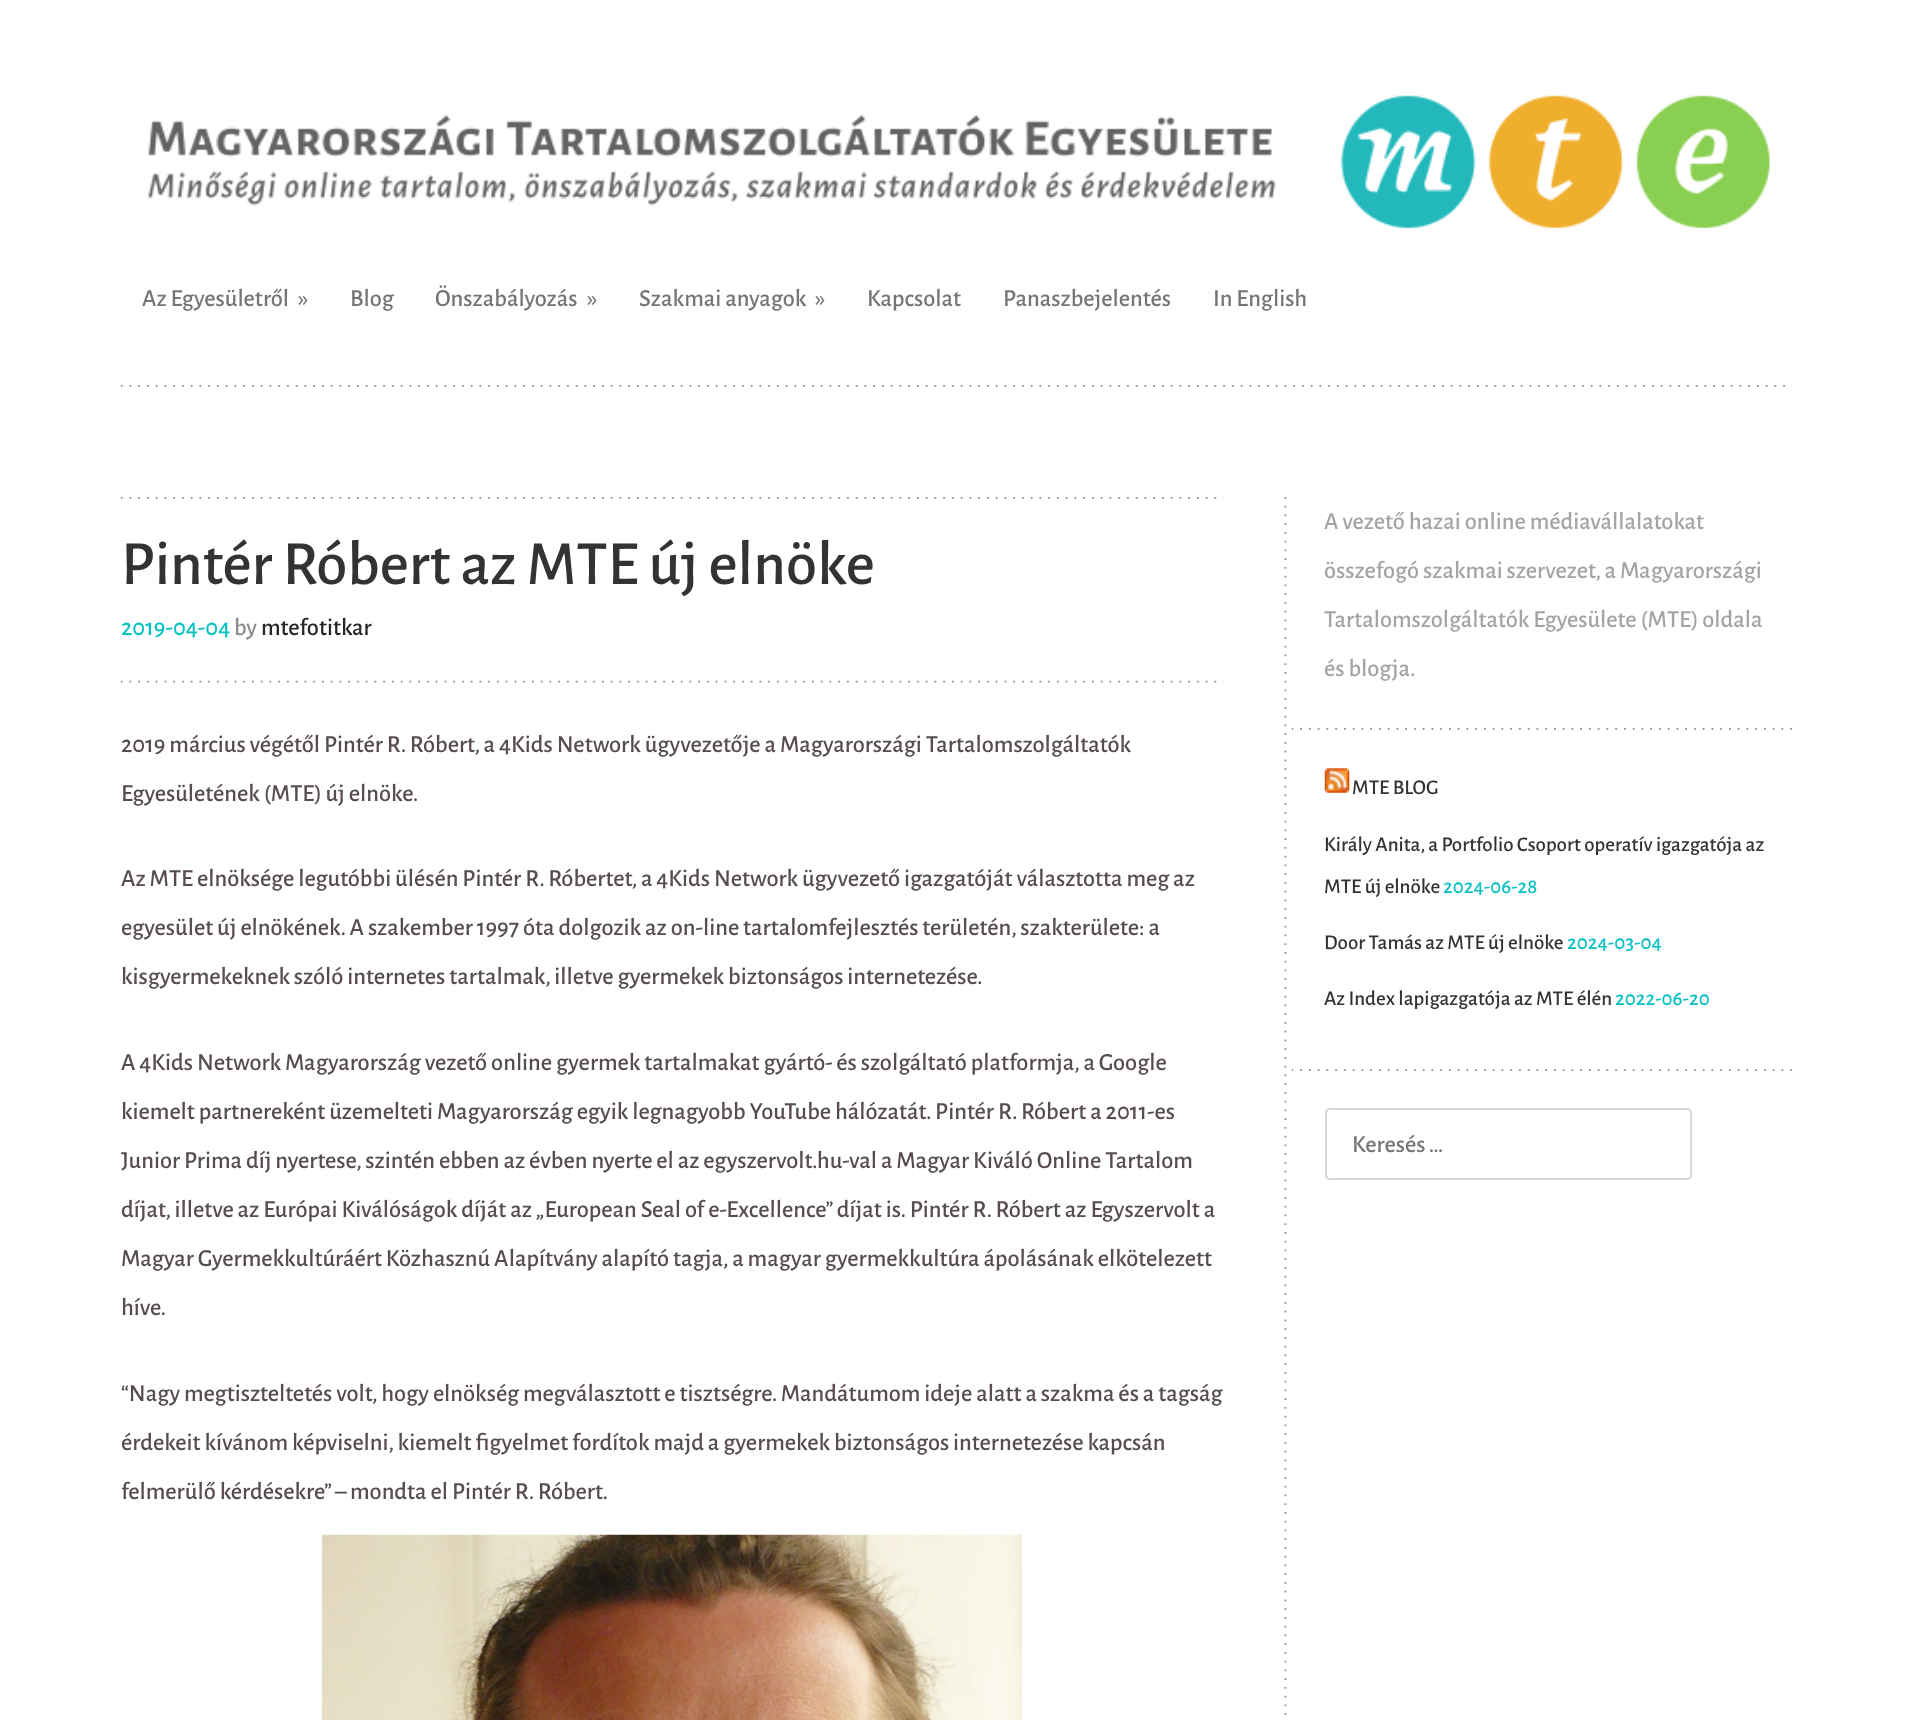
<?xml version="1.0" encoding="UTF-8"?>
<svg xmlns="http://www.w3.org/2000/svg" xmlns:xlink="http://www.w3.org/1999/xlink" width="1912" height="1720">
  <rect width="100%" height="100%" fill="#ffffff" />
  <image x="120" y="385" width="1665" height="2" xlink:href="image1.png" />
  <image x="148" y="95" width="1622" height="134" xlink:href="image2.png" />
  <image x="1284" y="497" width="3" height="1218" xlink:href="image3.png" />
  <image x="120" y="497" width="1104" height="2" xlink:href="image4.png" />
  <image x="120" y="680" width="1104" height="3" xlink:href="image5.png" />
  <image x="322" y="1534" width="700" height="186" xlink:href="image6.png" />
  <image x="1291" y="728" width="501" height="2" xlink:href="image7.png" />
  <image x="1291" y="1069" width="501" height="2" xlink:href="image8.png" />
  <image x="1324" y="768" width="26" height="25" xlink:href="image9.png" />
  <rect x="1326" y="1109" width="365" height="70" rx="4" fill="none" stroke="#d6d6d6" stroke-width="2" />
  <text x="142" y="306" style="font-family: Alegreya Sans; font-size: 24.5px; font-weight: 500; fill: #757575">Az Egyesületről</text>
  <text x="298" y="306" style="font-family: Alegreya Sans; font-size: 24.5px; font-weight: 500; fill: #757575">»</text>
  <text x="350" y="306" style="font-family: Alegreya Sans; font-size: 24.5px; font-weight: 500; fill: #757575">Blog</text>
  <text x="435" y="306" style="font-family: Alegreya Sans; font-size: 24.5px; font-weight: 500; fill: #757575">Önszabályozás</text>
  <text x="587" y="306" style="font-family: Alegreya Sans; font-size: 24.5px; font-weight: 500; fill: #757575">»</text>
  <text x="639" y="306" style="font-family: Alegreya Sans; font-size: 24.5px; font-weight: 500; fill: #757575">Szakmai anyagok</text>
  <text x="815" y="306" style="font-family: Alegreya Sans; font-size: 24.5px; font-weight: 500; fill: #757575">»</text>
  <text x="867" y="306" style="font-family: Alegreya Sans; font-size: 24.5px; font-weight: 500; fill: #757575">Kapcsolat</text>
  <text x="1003" y="306" style="font-family: Alegreya Sans; font-size: 24.5px; font-weight: 500; fill: #757575">Panaszbejelentés</text>
  <text x="1213" y="306" style="font-family: Alegreya Sans; font-size: 24.5px; font-weight: 500; fill: #757575">In English</text>
  <text x="121" y="584" style="font-family: Alegreya Sans; font-size: 63px; font-weight: 500; fill: #333333">Pintér Róbert az MTE új elnöke</text>
  <text x="121" y="635" style="font-family: Alegreya Sans; font-size: 24.5px; font-weight: 500; fill: #08c1c3">2019-04-04</text>
  <text x="234" y="635" style="font-family: Alegreya Sans; font-size: 24.5px; font-weight: 500; fill: #8c8c8c">by</text>
  <text x="261" y="635" style="font-family: Alegreya Sans; font-size: 24.5px; font-weight: 500; fill: #262626">mtefotitkar</text>
  <text x="121" y="752" style="font-family: Alegreya Sans; font-size: 24.5px; font-weight: 500; fill: #574d4d">2019 március végétől Pintér R. Róbert, a 4Kids Network ügyvezetője a Magyarországi Tartalomszolgáltatók</text>
  <text x="121" y="801" style="font-family: Alegreya Sans; font-size: 24.5px; font-weight: 500; fill: #574d4d">Egyesületének (MTE) új elnöke.</text>
  <text x="121" y="886" style="font-family: Alegreya Sans; font-size: 24.5px; font-weight: 500; fill: #574d4d">Az MTE elnöksége legutóbbi ülésén Pintér R. Róbertet, a 4Kids Network ügyvezető igazgatóját választotta meg az</text>
  <text x="121" y="935" style="font-family: Alegreya Sans; font-size: 24.5px; font-weight: 500; fill: #574d4d">egyesület új elnökének. A szakember 1997 óta dolgozik az on-line tartalomfejlesztés területén, szakterülete: a</text>
  <text x="121" y="984" style="font-family: Alegreya Sans; font-size: 24.5px; font-weight: 500; fill: #574d4d">kisgyermekeknek szóló internetes tartalmak, illetve gyermekek biztonságos internetezése.</text>
  <text x="121" y="1070" style="font-family: Alegreya Sans; font-size: 24.5px; font-weight: 500; fill: #574d4d">A 4Kids Network Magyarország vezető online gyermek tartalmakat gyártó- és szolgáltató platformja, a Google</text>
  <text x="121" y="1119" style="font-family: Alegreya Sans; font-size: 24.5px; font-weight: 500; fill: #574d4d">kiemelt partnereként üzemelteti Magyarország egyik legnagyobb YouTube hálózatát. Pintér R. Róbert a 2011-es</text>
  <text x="121" y="1168" style="font-family: Alegreya Sans; font-size: 24.5px; font-weight: 500; fill: #574d4d">Junior Prima díj nyertese, szintén ebben az évben nyerte el az egyszervolt.hu-val a Magyar Kiváló Online Tartalom</text>
  <text x="121" y="1217" style="font-family: Alegreya Sans; font-size: 24.5px; font-weight: 500; fill: #574d4d">díjat, illetve az Európai Kiválóságok díját az „European Seal of e-Excellence” díjat is. Pintér R. Róbert az Egyszervolt a</text>
  <text x="121" y="1266" style="font-family: Alegreya Sans; font-size: 24.5px; font-weight: 500; fill: #574d4d">Magyar Gyermekkultúráért Közhasznú Alapítvány alapító tagja, a magyar gyermekkultúra ápolásának elkötelezett</text>
  <text x="121" y="1315" style="font-family: Alegreya Sans; font-size: 24.5px; font-weight: 500; fill: #574d4d">híve.</text>
  <text x="121" y="1401" style="font-family: Alegreya Sans; font-size: 24.5px; font-weight: 500; fill: #574d4d">“Nagy megtiszteltetés volt, hogy elnökség megválasztott e tisztségre. Mandátumom ideje alatt a szakma és a tagság</text>
  <text x="121" y="1450" style="font-family: Alegreya Sans; font-size: 24.5px; font-weight: 500; fill: #574d4d">érdekeit kívánom képviselni, kiemelt figyelmet fordítok majd a gyermekek biztonságos internetezése kapcsán</text>
  <text x="121" y="1499" style="font-family: Alegreya Sans; font-size: 24.5px; font-weight: 500; fill: #574d4d">felmerülő kérdésekre” – mondta el Pintér R. Róbert.</text>
  <text x="1324" y="529" style="font-family: Alegreya Sans; font-size: 24.5px; font-weight: 500; fill: #a5a3a3">A vezető hazai online médiavállalatokat</text>
  <text x="1324" y="578" style="font-family: Alegreya Sans; font-size: 24.5px; font-weight: 500; fill: #a5a3a3">összefogó szakmai szervezet, a Magyarországi</text>
  <text x="1324" y="627" style="font-family: Alegreya Sans; font-size: 24.5px; font-weight: 500; fill: #a5a3a3">Tartalomszolgáltatók Egyesülete (MTE) oldala</text>
  <text x="1324" y="676" style="font-family: Alegreya Sans; font-size: 24.5px; font-weight: 500; fill: #a5a3a3">és blogja.</text>
  <text x="1352" y="794" style="font-family: Alegreya Sans; font-size: 21px; font-weight: 500; fill: #333333">MTE BLOG</text>
  <text x="1324" y="851" style="font-family: Alegreya Sans; font-size: 21px; font-weight: 500; fill: #333333">Király Anita, a Portfolio Csoport operatív igazgatója az</text>
  <text x="1324" y="893" style="font-family: Alegreya Sans; font-size: 21px; font-weight: 500; fill: #333333">MTE új elnöke</text>
  <text x="1443" y="893" style="font-family: Alegreya Sans; font-size: 21px; font-weight: 500; fill: #08c1c3">2024-06-28</text>
  <text x="1324" y="949" style="font-family: Alegreya Sans; font-size: 21px; font-weight: 500; fill: #333333">Door Tamás az MTE új elnöke</text>
  <text x="1567" y="949" style="font-family: Alegreya Sans; font-size: 21px; font-weight: 500; fill: #08c1c3">2024-03-04</text>
  <text x="1324" y="1005" style="font-family: Alegreya Sans; font-size: 21px; font-weight: 500; fill: #333333">Az Index lapigazgatója az MTE élén</text>
  <text x="1615" y="1005" style="font-family: Alegreya Sans; font-size: 21px; font-weight: 500; fill: #08c1c3">2022-06-20</text>
  <text x="1352" y="1152" style="font-family: Alegreya Sans; font-size: 24.5px; font-weight: 500; fill: #757575">Keresés …</text>
</svg>
